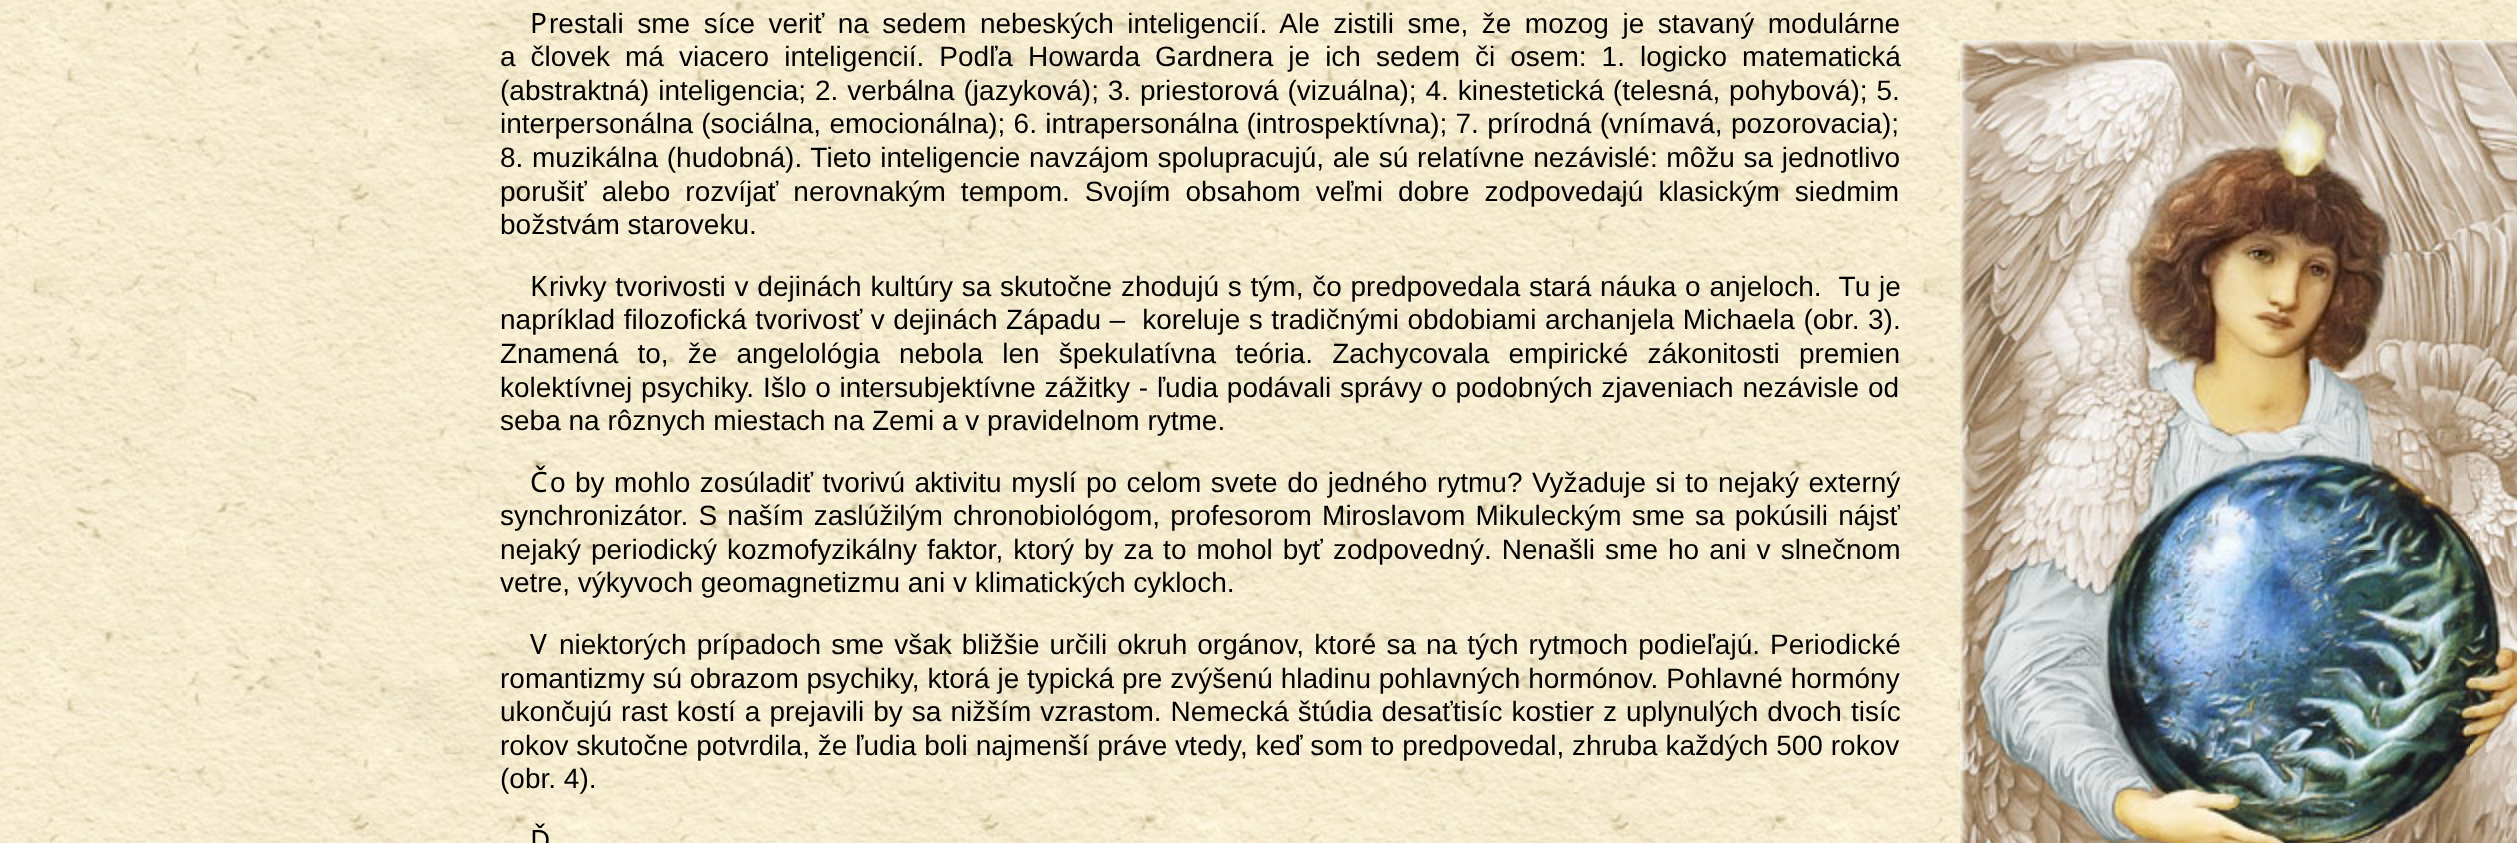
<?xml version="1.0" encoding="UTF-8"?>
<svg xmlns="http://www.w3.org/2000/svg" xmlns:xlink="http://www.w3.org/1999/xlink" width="2517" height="843">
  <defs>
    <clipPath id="clip1"><rect x="500" width="1400" height="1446" /></clipPath>
  </defs>
  <rect width="100%" height="100%" fill="#ffffff" />
  <image x="0" y="0" width="2517" height="843" xlink:href="image1.png" />
  <image x="1960" y="40" width="557" height="803" xlink:href="image2.png" />
  <text x="530" y="33" style="font-family: Noto Sans; font-size: 28px; fill: #000000">P</text>
  <text x="549" y="33" word-spacing="5.75" style="font-family: Liberation Sans; font-size: 28px; fill: #000000">restali sme síce veriť na sedem nebeských inteligencií. Ale zistili sme, že mozog je stavaný modulárne</text>
  <text x="500" y="66" word-spacing="7.25" style="font-family: Liberation Sans; font-size: 28px; fill: #000000">a človek má viacero inteligencií. Podľa Howarda Gardnera je ich sedem či osem: 1. logicko matematická</text>
  <text x="500" y="100" word-spacing="1.1" style="font-family: Liberation Sans; font-size: 28px; fill: #000000">(abstraktná) inteligencia; 2. verbálna (jazyková); 3. priestorová (vizuálna); 4. kinestetická (telesná, pohybová); 5.</text>
  <text x="500" y="133" word-spacing="0.5" style="font-family: Liberation Sans; font-size: 28px; fill: #000000">interpersonálna (sociálna, emocionálna); 6. intrapersonálna (introspektívna); 7. prírodná (vnímavá, pozorovacia);</text>
  <text x="500" y="167" word-spacing="0.9" style="font-family: Liberation Sans; font-size: 28px; fill: #000000">8. muzikálna (hudobná). Tieto inteligencie navzájom spolupracujú, ale sú relatívne nezávislé: môžu sa jednotlivo</text>
  <text x="500" y="201" word-spacing="7.25" style="font-family: Liberation Sans; font-size: 28px; fill: #000000">porušiť alebo rozvíjať nerovnakým tempom. Svojím obsahom veľmi dobre zodpovedajú klasickým siedmim</text>
  <text x="500" y="234" style="font-family: Liberation Sans; font-size: 28px; fill: #000000">božstvám staroveku.</text>
  <text x="530" y="296" style="font-family: Noto Sans; font-size: 28px; fill: #000000">K</text>
  <text x="549" y="296" word-spacing="1" style="font-family: Liberation Sans; font-size: 28px; fill: #000000" xml:space="preserve">rivky tvorivosti v dejinách kultúry sa skutočne zhodujú s tým, čo predpovedala stará náuka o anjeloch.  Tu je</text>
  <text x="500" y="329" word-spacing="0.75" style="font-family: Liberation Sans; font-size: 28px; fill: #000000" xml:space="preserve">napríklad filozofická tvorivosť v dejinách Západu –  koreluje s tradičnými obdobiami archanjela Michaela (obr. 3).</text>
  <text x="500" y="363" word-spacing="11.4" style="font-family: Liberation Sans; font-size: 28px; fill: #000000">Znamená to, že angelológia nebola len špekulatívna teória. Zachycovala empirické zákonitosti premien</text>
  <text x="500" y="397" word-spacing="1" style="font-family: Liberation Sans; font-size: 28px; fill: #000000">kolektívnej psychiky. Išlo o intersubjektívne zážitky - ľudia podávali správy o podobných zjaveniach nezávisle od</text>
  <text x="500" y="430" style="font-family: Liberation Sans; font-size: 28px; fill: #000000">seba na rôznych miestach na Zemi a v pravidelnom rytme.</text>
  <text x="530" y="492" style="font-family: Noto Sans; font-size: 28px; fill: #000000">Č</text>
  <text x="550" y="492" word-spacing="1.7" style="font-family: Liberation Sans; font-size: 28px; fill: #000000">o by mohlo zosúladiť tvorivú aktivitu myslí po celom svete do jedného rytmu? Vyžaduje si to nejaký externý</text>
  <g clip-path="url(#clip1)">
    <text x="500" y="525" word-spacing="2.4" style="font-family: Liberation Sans; font-size: 28px; fill: #000000">synchronizátor. S naším zaslúžilým chronobiológom, profesorom Miroslavom Mikuleckým sme sa pokúsili nájsť</text>
  </g>
  <text x="500" y="559" word-spacing="2.25" style="font-family: Liberation Sans; font-size: 28px; fill: #000000">nejaký periodický kozmofyzikálny faktor, ktorý by za to mohol byť zodpovedný. Nenašli sme ho ani v slnečnom</text>
  <text x="500" y="592" style="font-family: Liberation Sans; font-size: 28px; fill: #000000">vetre, výkyvoch geomagnetizmu ani v klimatických cykloch.</text>
  <text x="530" y="654" style="font-family: Noto Sans; font-size: 28px; fill: #000000">V</text>
  <text x="559" y="654" word-spacing="2.25" style="font-family: Liberation Sans; font-size: 28px; fill: #000000">niektorých prípadoch sme však bližšie určili okruh orgánov, ktoré sa na tých rytmoch podieľajú. Periodické</text>
  <text x="500" y="688" style="font-family: Liberation Sans; font-size: 28px; fill: #000000">romantizmy sú obrazom psychiky, ktorá je typická pre zvýšenú hladinu pohlavných hormónov. Pohlavné hormóny</text>
  <text x="500" y="721" word-spacing="1.2" style="font-family: Liberation Sans; font-size: 28px; fill: #000000">ukončujú rast kostí a prejavili by sa nižším vzrastom. Nemecká štúdia desaťtisíc kostier z uplynulých dvoch tisíc</text>
  <text x="500" y="755" word-spacing="0.1" style="font-family: Liberation Sans; font-size: 28px; fill: #000000">rokov skutočne potvrdila, že ľudia boli najmenší práve vtedy, keď som to predpovedal, zhruba každých 500 rokov</text>
  <text x="500" y="788" style="font-family: Liberation Sans; font-size: 28px; fill: #000000">(obr. 4).</text>
  <text x="530" y="850" style="font-family: Noto Sans; font-size: 28px; fill: #000000">Ď</text>
</svg>
